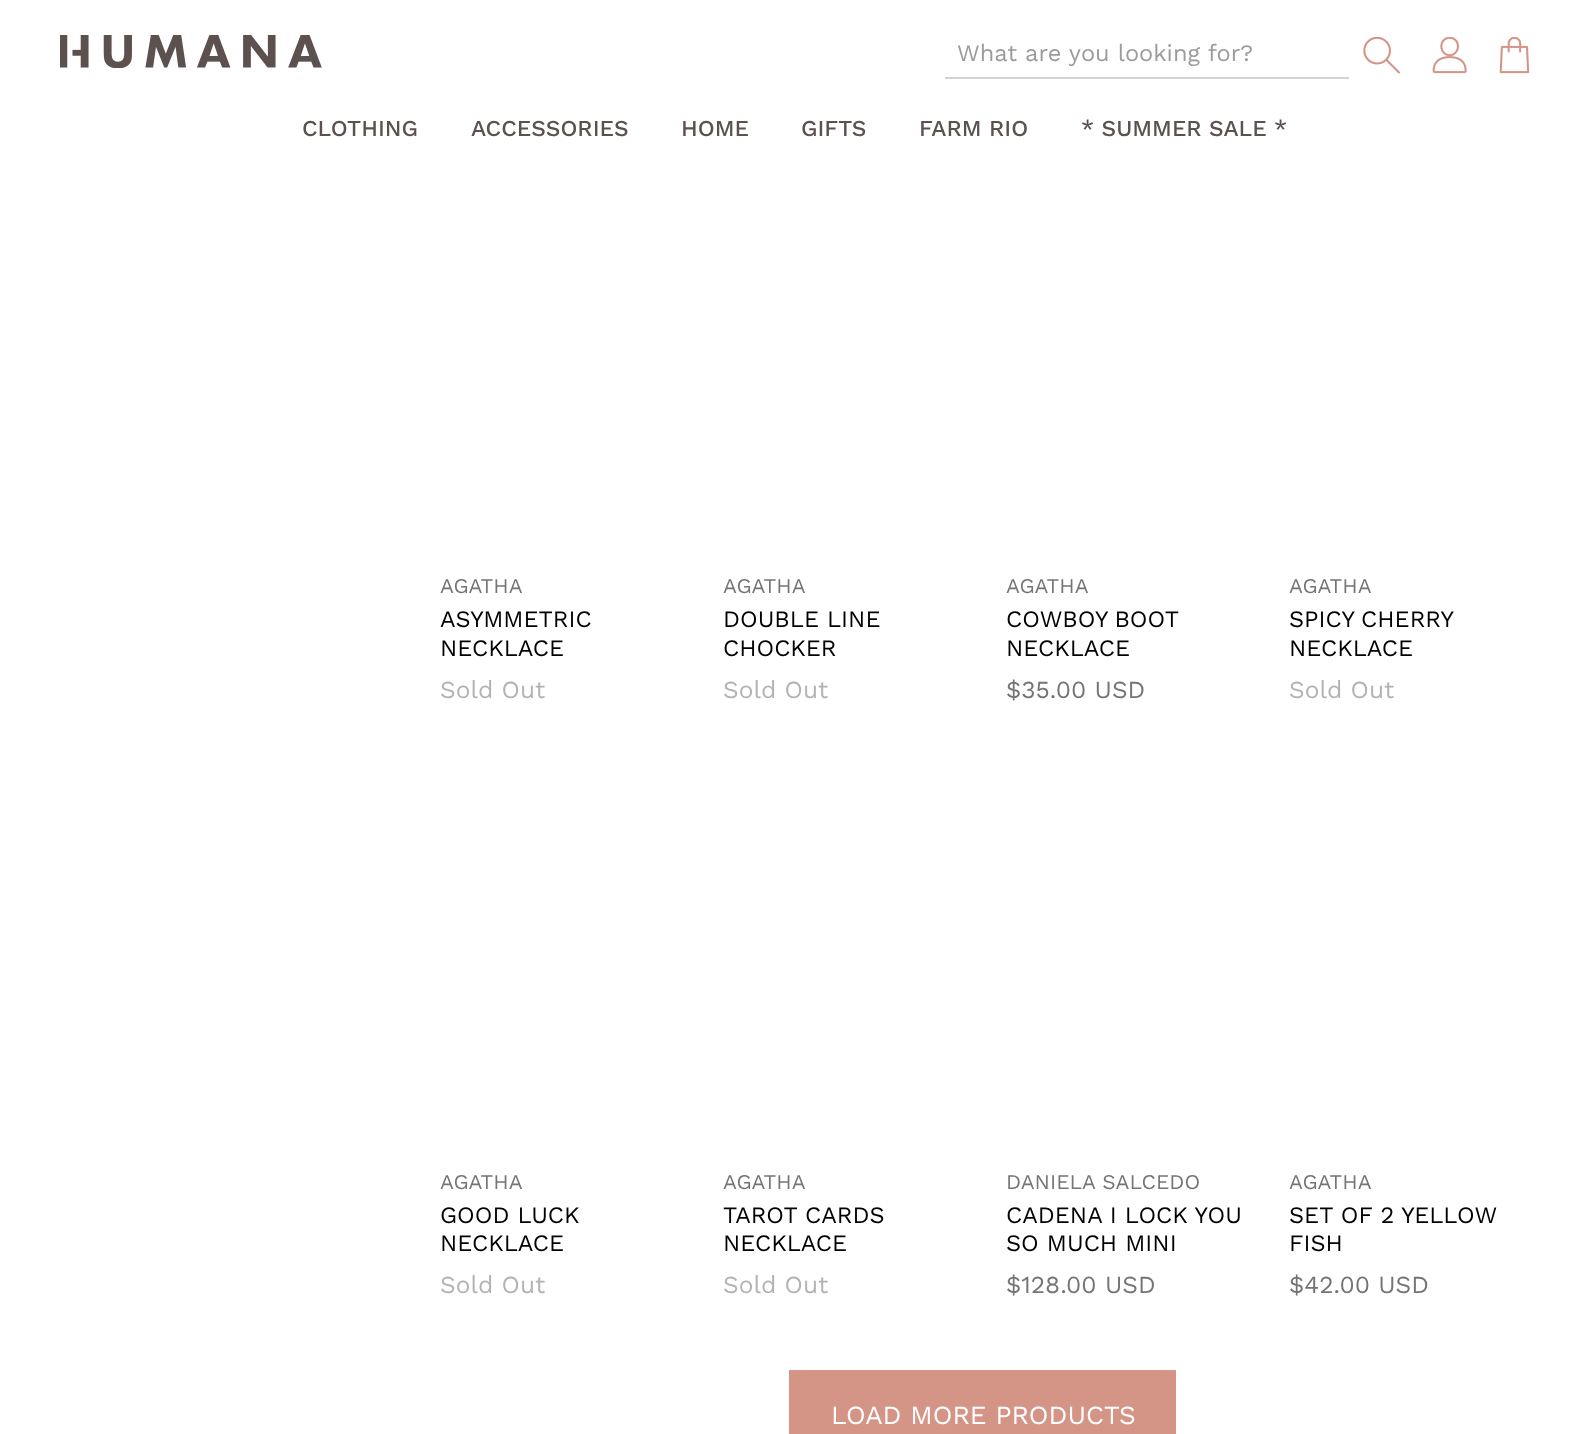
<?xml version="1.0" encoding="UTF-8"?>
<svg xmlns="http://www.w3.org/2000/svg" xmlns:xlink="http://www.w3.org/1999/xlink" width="1589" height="1434">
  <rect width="100%" height="100%" fill="#ffffff" />
  <image x="60" y="35" width="262" height="33" xlink:href="image1.png" />
  <rect x="945" y="77" width="404" height="2" fill="#d3d3d3" />
  <image x="1363" y="37" width="37" height="37" xlink:href="image2.png" />
  <image x="1432" y="37" width="35" height="37" xlink:href="image3.png" />
  <image x="1499" y="37" width="31" height="37" xlink:href="image4.png" />
  <rect x="789" y="1370" width="387" height="64" fill="#d59586" />
  <text x="957" y="61" style="font-family: Work Sans; font-size: 23.6px; fill: #9b9b9b">What are you looking for?</text>
  <text x="302" y="136" style="font-family: Work Sans; font-size: 22.75px; font-weight: 500; fill: #5c514e">CLOTHING</text>
  <text x="471" y="136" style="font-family: Work Sans; font-size: 22.75px; font-weight: 500; fill: #5c514e">ACCESSORIES</text>
  <text x="681" y="136" style="font-family: Work Sans; font-size: 22.75px; font-weight: 500; fill: #5c514e">HOME</text>
  <text x="801" y="136" style="font-family: Work Sans; font-size: 22.75px; font-weight: 500; fill: #5c514e">GIFTS</text>
  <text x="919" y="136" style="font-family: Work Sans; font-size: 22.75px; font-weight: 500; fill: #5c514e">FARM RIO</text>
  <text x="1081" y="136" style="font-family: Work Sans; font-size: 22.75px; font-weight: 500; fill: #5c514e">* SUMMER SALE *</text>
  <text x="440" y="593" style="font-family: Work Sans; font-size: 21px; fill: #757575">AGATHA</text>
  <text x="440" y="627" style="font-family: Work Sans; font-size: 23.6px; fill: #000000">ASYMMETRIC</text>
  <text x="440" y="656" style="font-family: Work Sans; font-size: 23.6px; fill: #000000">NECKLACE</text>
  <text x="440" y="698" style="font-family: Work Sans; font-size: 24.5px; fill: #b3b3b3">Sold Out</text>
  <text x="723" y="593" style="font-family: Work Sans; font-size: 21px; fill: #757575">AGATHA</text>
  <text x="723" y="627" style="font-family: Work Sans; font-size: 23.6px; fill: #000000">DOUBLE LINE</text>
  <text x="723" y="656" style="font-family: Work Sans; font-size: 23.6px; fill: #000000">CHOCKER</text>
  <text x="723" y="698" style="font-family: Work Sans; font-size: 24.5px; fill: #b3b3b3">Sold Out</text>
  <text x="1006" y="593" style="font-family: Work Sans; font-size: 21px; fill: #757575">AGATHA</text>
  <text x="1006" y="627" word-spacing="-1" style="font-family: Work Sans; font-size: 23.6px; fill: #000000">COWBOY BOOT</text>
  <text x="1006" y="656" style="font-family: Work Sans; font-size: 23.6px; fill: #000000">NECKLACE</text>
  <text x="1006" y="698" style="font-family: Work Sans; font-size: 24.5px; fill: #757575">$35.00 USD</text>
  <text x="1289" y="593" style="font-family: Work Sans; font-size: 21px; fill: #757575">AGATHA</text>
  <text x="1289" y="627" word-spacing="-1" style="font-family: Work Sans; font-size: 23.6px; fill: #000000">SPICY CHERRY</text>
  <text x="1289" y="656" style="font-family: Work Sans; font-size: 23.6px; fill: #000000">NECKLACE</text>
  <text x="1289" y="698" style="font-family: Work Sans; font-size: 24.5px; fill: #b3b3b3">Sold Out</text>
  <text x="440" y="1189" style="font-family: Work Sans; font-size: 21px; fill: #757575">AGATHA</text>
  <text x="440" y="1223" style="font-family: Work Sans; font-size: 23.6px; fill: #000000">GOOD LUCK</text>
  <text x="440" y="1251" style="font-family: Work Sans; font-size: 23.6px; fill: #000000">NECKLACE</text>
  <text x="440" y="1293" style="font-family: Work Sans; font-size: 24.5px; fill: #b3b3b3">Sold Out</text>
  <text x="723" y="1189" style="font-family: Work Sans; font-size: 21px; fill: #757575">AGATHA</text>
  <text x="723" y="1223" style="font-family: Work Sans; font-size: 23.6px; fill: #000000">TAROT CARDS</text>
  <text x="723" y="1251" style="font-family: Work Sans; font-size: 23.6px; fill: #000000">NECKLACE</text>
  <text x="723" y="1293" style="font-family: Work Sans; font-size: 24.5px; fill: #b3b3b3">Sold Out</text>
  <text x="1006" y="1189" style="font-family: Work Sans; font-size: 21px; fill: #757575">DANIELA SALCEDO</text>
  <text x="1006" y="1223" style="font-family: Work Sans; font-size: 23.6px; fill: #000000">CADENA I LOCK YOU</text>
  <text x="1006" y="1251" style="font-family: Work Sans; font-size: 23.6px; fill: #000000">SO MUCH MINI</text>
  <text x="1006" y="1293" style="font-family: Work Sans; font-size: 24.5px; fill: #757575">$128.00 USD</text>
  <text x="1289" y="1189" style="font-family: Work Sans; font-size: 21px; fill: #757575">AGATHA</text>
  <text x="1289" y="1223" style="font-family: Work Sans; font-size: 23.6px; fill: #000000">SET OF 2 YELLOW</text>
  <text x="1289" y="1251" style="font-family: Work Sans; font-size: 23.6px; fill: #000000">FISH</text>
  <text x="1289" y="1293" style="font-family: Work Sans; font-size: 24.5px; fill: #757575">$42.00 USD</text>
  <text x="831" y="1424" style="font-family: Work Sans; font-size: 26.25px; fill: #ffffff">LOAD MORE PRODUCTS</text>
</svg>
